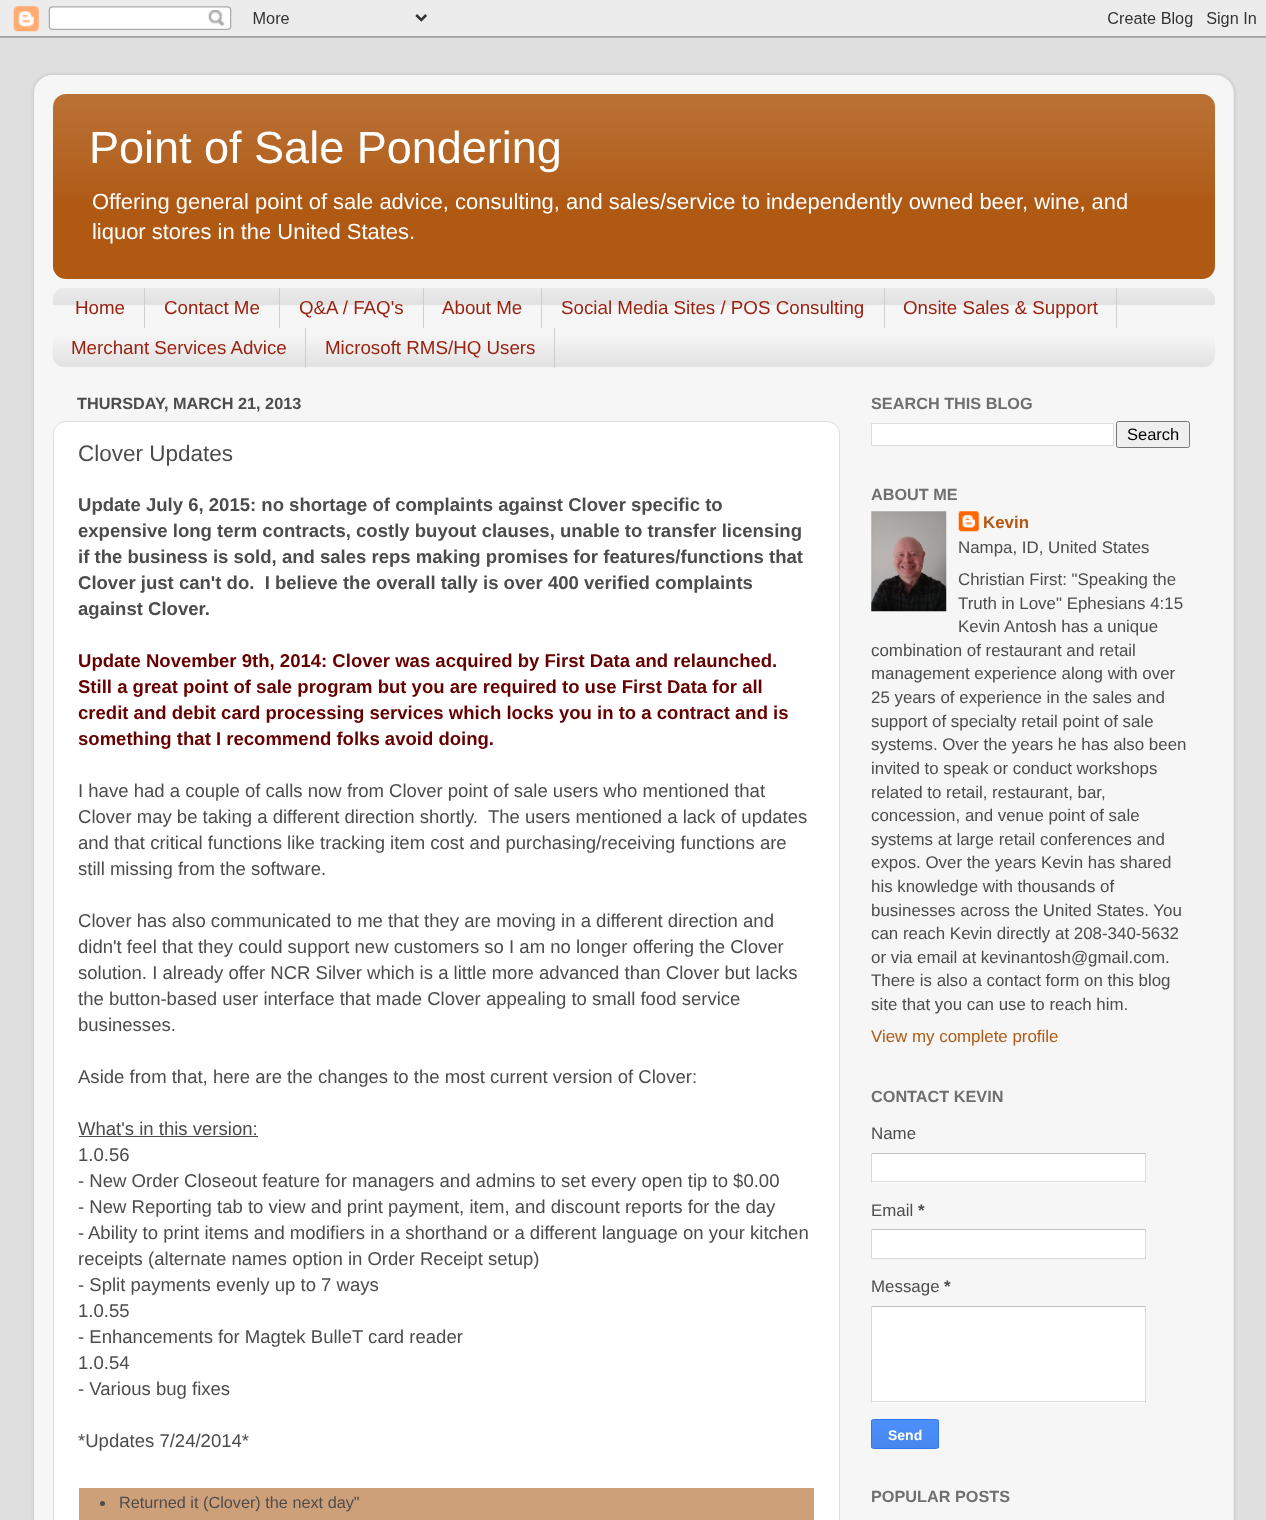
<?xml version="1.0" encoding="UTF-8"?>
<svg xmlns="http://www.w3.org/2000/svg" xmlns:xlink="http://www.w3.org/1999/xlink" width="1266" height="1520">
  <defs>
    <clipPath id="clip1"><path d="M 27 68 h 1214 v 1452 h -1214 z m 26 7 h 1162 c 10.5 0 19 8.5 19 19 v 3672 c 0 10.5 -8.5 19 -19 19 h -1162 c -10.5 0 -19 -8.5 -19 -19 v -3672 c 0 -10.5 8.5 -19 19 -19 z" clip-rule="evenodd" /></clipPath>
    <clipPath id="clip2"><rect x="871" y="1419" width="68" height="30" rx="2.5" /></clipPath>
    <linearGradient id="g1" gradientUnits="userSpaceOnUse" x1="905" y1="1420" x2="905" y2="1448"><stop offset="0" stop-color="#4d90fe" /><stop offset="1" stop-color="#4787ed" /></linearGradient>
  </defs>
  <rect width="100%" height="100%" fill="#dfdfdf" />
  <image x="0" y="0" width="1266" height="38" xlink:href="image1.png" />
  <g clip-path="url(#clip1)">
    <rect x="34" y="75" width="1200" height="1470" rx="19" fill="#000000" fill-opacity="0.15" filter="blur(2px)" />
  </g>
  <image x="34" y="75" width="1200" height="1445" xlink:href="image2.png" />
  <rect x="53" y="94" width="1162" height="185" rx="13" fill="#af5913" />
  <image x="53" y="94" width="1162" height="105" xlink:href="image3.png" />
  <image x="52" y="288" width="1163" height="79" xlink:href="image4.png" />
  <rect x="144" y="288" width="1" height="40" fill="#cecece" />
  <rect x="279" y="288" width="1" height="40" fill="#cecece" />
  <rect x="423" y="288" width="1" height="40" fill="#cecece" />
  <rect x="541" y="288" width="1" height="40" fill="#cecece" />
  <rect x="884" y="288" width="1" height="40" fill="#cecece" />
  <rect x="1116" y="288" width="1" height="40" fill="#cecece" />
  <rect x="305" y="328" width="1" height="40" fill="#cecece" />
  <rect x="554" y="328" width="1" height="40" fill="#cecece" />
  <rect x="53.5" y="421.5" width="786" height="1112" rx="12.5" fill="#ffffff" stroke="#dfdfdf" />
  <rect x="79" y="1136" width="179" height="1" fill="#4c4c4c" />
  <rect x="79" y="1488" width="735" height="32" fill="#cea07a" />
  <circle cx="102.5" cy="1503.5" r="2.5" fill="#4c4c4c" />
  <rect x="871.5" y="423.5" width="242" height="22" fill="#ffffff" stroke="#dddddd" />
  <rect x="1116.5" y="421.5" width="73" height="26" rx="2" fill="#efefef" stroke="#767676" />
  <image x="871" y="511" width="76" height="101" xlink:href="image5.png" />
  <image x="958" y="511" width="21" height="21" xlink:href="image6.png" />
  <rect x="872" y="1154" width="273" height="29" fill="#ffffff" />
  <rect x="871" y="1153" width="275" height="1" fill="#c0c0c0" />
  <rect x="1145" y="1153" width="1" height="30" fill="#d9d9d9" />
  <rect x="871" y="1181" width="275" height="1" fill="#d9d9d9" />
  <rect x="871" y="1153" width="1" height="30" fill="#d9d9d9" />
  <rect x="872" y="1230" width="273" height="28" fill="#ffffff" />
  <rect x="871" y="1229" width="275" height="1" fill="#c0c0c0" />
  <rect x="1145" y="1229" width="1" height="30" fill="#d9d9d9" />
  <rect x="871" y="1258" width="275" height="1" fill="#d9d9d9" />
  <rect x="871" y="1229" width="1" height="30" fill="#d9d9d9" />
  <rect x="872" y="1307" width="273" height="96" fill="#ffffff" />
  <rect x="871" y="1306" width="275" height="1" fill="#c0c0c0" />
  <rect x="1145" y="1306" width="1" height="97" fill="#d9d9d9" />
  <rect x="871" y="1401" width="275" height="1" fill="#d9d9d9" />
  <rect x="871" y="1306" width="1" height="97" fill="#d9d9d9" />
  <g clip-path="url(#clip2)">
    <rect x="871" y="1420" width="68" height="28" fill="url(#g1)" />
  </g>
  <rect x="871.5" y="1419.5" width="67" height="29" rx="2" fill="none" stroke="#3079ed" />
  <text x="89" y="163" style="font-family: Liberation Sans; font-size: 45px; fill: #ffffff">Point of Sale Pondering</text>
  <text x="92" y="209" style="font-family: Liberation Sans; font-size: 21.95px; fill: #ffffff">Offering general point of sale advice, consulting, and sales/service to independently owned beer, wine, and</text>
  <text x="92" y="239" style="font-family: Liberation Sans; font-size: 21.95px; fill: #ffffff">liquor stores in the United States.</text>
  <text x="75" y="314" style="font-family: Liberation Sans; font-size: 18.75px; fill: #992211">Home</text>
  <text x="164" y="314" style="font-family: Liberation Sans; font-size: 18.75px; fill: #992211">Contact Me</text>
  <text x="299" y="314" style="font-family: Liberation Sans; font-size: 18.75px; fill: #992211">Q&amp;A / FAQ's</text>
  <text x="442" y="314" style="font-family: Liberation Sans; font-size: 18.75px; fill: #992211">About Me</text>
  <text x="561" y="314" style="font-family: Liberation Sans; font-size: 18.75px; fill: #992211">Social Media Sites / POS Consulting</text>
  <text x="903" y="314" style="font-family: Liberation Sans; font-size: 18.75px; fill: #992211">Onsite Sales &amp; Support</text>
  <text x="71" y="354" style="font-family: Liberation Sans; font-size: 18.75px; fill: #992211">Merchant Services Advice</text>
  <text x="325" y="354" style="font-family: Liberation Sans; font-size: 18.75px; fill: #992211">Microsoft RMS/HQ Users</text>
  <text x="77" y="409" style="font-family: Liberation Sans; font-size: 16.25px; font-weight: bold; fill: #4c4c4c">THURSDAY, MARCH 21, 2013</text>
  <text x="78" y="461" style="font-family: Liberation Sans; font-size: 22.5px; fill: #4c4c4c">Clover Updates</text>
  <text x="78" y="511" style="font-family: Liberation Sans; font-size: 18.55px; font-weight: bold; fill: #4c4c4c">Update July 6, 2015: no shortage of complaints against Clover specific to</text>
  <text x="78" y="537" style="font-family: Liberation Sans; font-size: 18.55px; font-weight: bold; fill: #4c4c4c">expensive long term contracts, costly buyout clauses, unable to transfer licensing</text>
  <text x="78" y="563" style="font-family: Liberation Sans; font-size: 18.55px; font-weight: bold; fill: #4c4c4c">if the business is sold, and sales reps making promises for features/functions that</text>
  <text x="78" y="589" style="font-family: Liberation Sans; font-size: 18.55px; font-weight: bold; fill: #4c4c4c" xml:space="preserve">Clover just can't do.  I believe the overall tally is over 400 verified complaints</text>
  <text x="78" y="615" style="font-family: Liberation Sans; font-size: 18.55px; font-weight: bold; fill: #4c4c4c">against Clover.</text>
  <text x="78" y="667" style="font-family: Liberation Sans; font-size: 18.55px; font-weight: bold; fill: #660000">Update November 9th, 2014: Clover was acquired by First Data and relaunched.</text>
  <text x="78" y="693" style="font-family: Liberation Sans; font-size: 18.55px; font-weight: bold; fill: #660000">Still a great point of sale program but you are required to use First Data for all</text>
  <text x="78" y="719" style="font-family: Liberation Sans; font-size: 18.55px; font-weight: bold; fill: #660000">credit and debit card processing services which locks you in to a contract and is</text>
  <text x="78" y="745" style="font-family: Liberation Sans; font-size: 18.55px; font-weight: bold; fill: #660000">something that I recommend folks avoid doing.</text>
  <text x="78" y="797" style="font-family: Liberation Sans; font-size: 18.55px; fill: #4c4c4c">I have had a couple of calls now from Clover point of sale users who mentioned that</text>
  <text x="78" y="823" style="font-family: Liberation Sans; font-size: 18.55px; fill: #4c4c4c" xml:space="preserve">Clover may be taking a different direction shortly.  The users mentioned a lack of updates</text>
  <text x="78" y="849" style="font-family: Liberation Sans; font-size: 18.55px; fill: #4c4c4c">and that critical functions like tracking item cost and purchasing/receiving functions are</text>
  <text x="78" y="875" style="font-family: Liberation Sans; font-size: 18.55px; fill: #4c4c4c">still missing from the software.</text>
  <text x="78" y="927" style="font-family: Liberation Sans; font-size: 18.55px; fill: #4c4c4c">Clover has also communicated to me that they are moving in a different direction and</text>
  <text x="78" y="953" style="font-family: Liberation Sans; font-size: 18.55px; fill: #4c4c4c">didn't feel that they could support new customers so I am no longer offering the Clover</text>
  <text x="78" y="979" style="font-family: Liberation Sans; font-size: 18.55px; fill: #4c4c4c">solution. I already offer NCR Silver which is a little more advanced than Clover but lacks</text>
  <text x="78" y="1005" style="font-family: Liberation Sans; font-size: 18.55px; fill: #4c4c4c">the button-based user interface that made Clover appealing to small food service</text>
  <text x="78" y="1031" style="font-family: Liberation Sans; font-size: 18.55px; fill: #4c4c4c">businesses.</text>
  <text x="78" y="1083" style="font-family: Liberation Sans; font-size: 18.55px; fill: #4c4c4c">Aside from that, here are the changes to the most current version of Clover:</text>
  <text x="78" y="1135" style="font-family: Liberation Sans; font-size: 18.55px; fill: #4c4c4c">What's in this version:</text>
  <text x="78" y="1161" style="font-family: Liberation Sans; font-size: 18.55px; fill: #4c4c4c">1.0.56</text>
  <text x="78" y="1187" style="font-family: Liberation Sans; font-size: 18.55px; fill: #4c4c4c">- New Order Closeout feature for managers and admins to set every open tip to $0.00</text>
  <text x="78" y="1213" style="font-family: Liberation Sans; font-size: 18.55px; fill: #4c4c4c">- New Reporting tab to view and print payment, item, and discount reports for the day</text>
  <text x="78" y="1239" style="font-family: Liberation Sans; font-size: 18.55px; fill: #4c4c4c">-</text>
  <text x="88" y="1239" style="font-family: Liberation Sans; font-size: 18.55px; fill: #4c4c4c">Ability to print items and modifiers in a shorthand or a different language on your kitchen</text>
  <text x="78" y="1265" style="font-family: Liberation Sans; font-size: 18.55px; fill: #4c4c4c">receipts (alternate names option in Order Receipt setup)</text>
  <text x="78" y="1291" style="font-family: Liberation Sans; font-size: 18.55px; fill: #4c4c4c">- Split payments evenly up to 7 ways</text>
  <text x="78" y="1317" style="font-family: Liberation Sans; font-size: 18.55px; fill: #4c4c4c">1.0.55</text>
  <text x="78" y="1343" style="font-family: Liberation Sans; font-size: 18.55px; fill: #4c4c4c">- Enhancements for Magtek BulleT card reader</text>
  <text x="78" y="1369" style="font-family: Liberation Sans; font-size: 18.55px; fill: #4c4c4c">1.0.54</text>
  <text x="78" y="1395" style="font-family: Liberation Sans; font-size: 18.55px; fill: #4c4c4c">- Various bug fixes</text>
  <text x="78" y="1447" style="font-family: Liberation Sans; font-size: 18.55px; fill: #4c4c4c">*Updates 7/24/2014*</text>
  <text x="119" y="1508" style="font-family: Liberation Sans; font-size: 16.25px; fill: #4c4c4c">Returned it (Clover) the next day"</text>
  <text x="871" y="409" style="font-family: Liberation Sans; font-size: 16.25px; font-weight: bold; fill: #6f6f6f">SEARCH THIS BLOG</text>
  <text x="1127" y="440" style="font-family: Liberation Sans; font-size: 16.5px; fill: #000000">Search</text>
  <text x="871" y="500" style="font-family: Liberation Sans; font-size: 16.25px; font-weight: bold; fill: #6f6f6f">ABOUT ME</text>
  <text x="983" y="528" style="font-family: Liberation Sans; font-size: 16.9px; font-weight: bold; fill: #af5913">Kevin</text>
  <text x="958" y="553" style="font-family: Liberation Sans; font-size: 16.9px; fill: #4c4c4c">Nampa, ID, United States</text>
  <text x="958" y="585" style="font-family: Liberation Sans; font-size: 16.9px; fill: #4c4c4c">Christian First: "Speaking the</text>
  <text x="958" y="609" style="font-family: Liberation Sans; font-size: 16.9px; fill: #4c4c4c">Truth in Love" Ephesians 4:15</text>
  <text x="958" y="632" style="font-family: Liberation Sans; font-size: 16.9px; fill: #4c4c4c">Kevin Antosh has a unique</text>
  <text x="871" y="656" style="font-family: Liberation Sans; font-size: 16.9px; fill: #4c4c4c">combination of restaurant and retail</text>
  <text x="871" y="679" style="font-family: Liberation Sans; font-size: 16.9px; fill: #4c4c4c">management experience along with over</text>
  <text x="871" y="703" style="font-family: Liberation Sans; font-size: 16.9px; fill: #4c4c4c">25 years of experience in the sales and</text>
  <text x="871" y="727" style="font-family: Liberation Sans; font-size: 16.9px; fill: #4c4c4c">support of specialty retail point of sale</text>
  <text x="871" y="750" style="font-family: Liberation Sans; font-size: 16.9px; fill: #4c4c4c">systems. Over the years he has also been</text>
  <text x="871" y="774" style="font-family: Liberation Sans; font-size: 16.9px; fill: #4c4c4c">invited to speak or conduct workshops</text>
  <text x="871" y="798" style="font-family: Liberation Sans; font-size: 16.9px; fill: #4c4c4c">related to retail, restaurant, bar,</text>
  <text x="871" y="821" style="font-family: Liberation Sans; font-size: 16.9px; fill: #4c4c4c">concession, and venue point of sale</text>
  <text x="871" y="845" style="font-family: Liberation Sans; font-size: 16.9px; fill: #4c4c4c">systems at large retail conferences and</text>
  <text x="871" y="868" style="font-family: Liberation Sans; font-size: 16.9px; fill: #4c4c4c">expos. Over the years Kevin has shared</text>
  <text x="871" y="892" style="font-family: Liberation Sans; font-size: 16.9px; fill: #4c4c4c">his knowledge with thousands of</text>
  <text x="871" y="916" style="font-family: Liberation Sans; font-size: 16.9px; fill: #4c4c4c">businesses across the United States. You</text>
  <text x="871" y="939" style="font-family: Liberation Sans; font-size: 16.9px; fill: #4c4c4c">can reach Kevin directly at 208-340-5632</text>
  <text x="871" y="963" style="font-family: Liberation Sans; font-size: 16.9px; fill: #4c4c4c">or via email at kevinantosh@gmail.com.</text>
  <text x="871" y="986" style="font-family: Liberation Sans; font-size: 16.9px; fill: #4c4c4c">There is also a contact form on this blog</text>
  <text x="871" y="1010" style="font-family: Liberation Sans; font-size: 16.9px; fill: #4c4c4c">site that you can use to reach him.</text>
  <text x="871" y="1042" style="font-family: Liberation Sans; font-size: 16.9px; fill: #af5913">View my complete profile</text>
  <text x="871" y="1102" style="font-family: Liberation Sans; font-size: 16.25px; font-weight: bold; fill: #6f6f6f">CONTACT KEVIN</text>
  <text x="871" y="1139" style="font-family: Liberation Sans; font-size: 16.9px; fill: #4c4c4c">Name</text>
  <text x="871" y="1216" style="font-family: Liberation Sans; font-size: 16.9px; fill: #4c4c4c">Email</text>
  <text x="918" y="1216" style="font-family: Liberation Sans; font-size: 16.9px; font-weight: bold; fill: #4c4c4c">*</text>
  <text x="871" y="1292" style="font-family: Liberation Sans; font-size: 16.9px; fill: #4c4c4c">Message</text>
  <text x="944" y="1292" style="font-family: Liberation Sans; font-size: 16.9px; font-weight: bold; fill: #4c4c4c">*</text>
  <text x="888" y="1440" style="font-family: Liberation Sans; font-size: 14px; font-weight: bold; fill: #ffffff">Send</text>
  <text x="871" y="1502" style="font-family: Liberation Sans; font-size: 16.25px; font-weight: bold; fill: #6f6f6f">POPULAR POSTS</text>
</svg>
